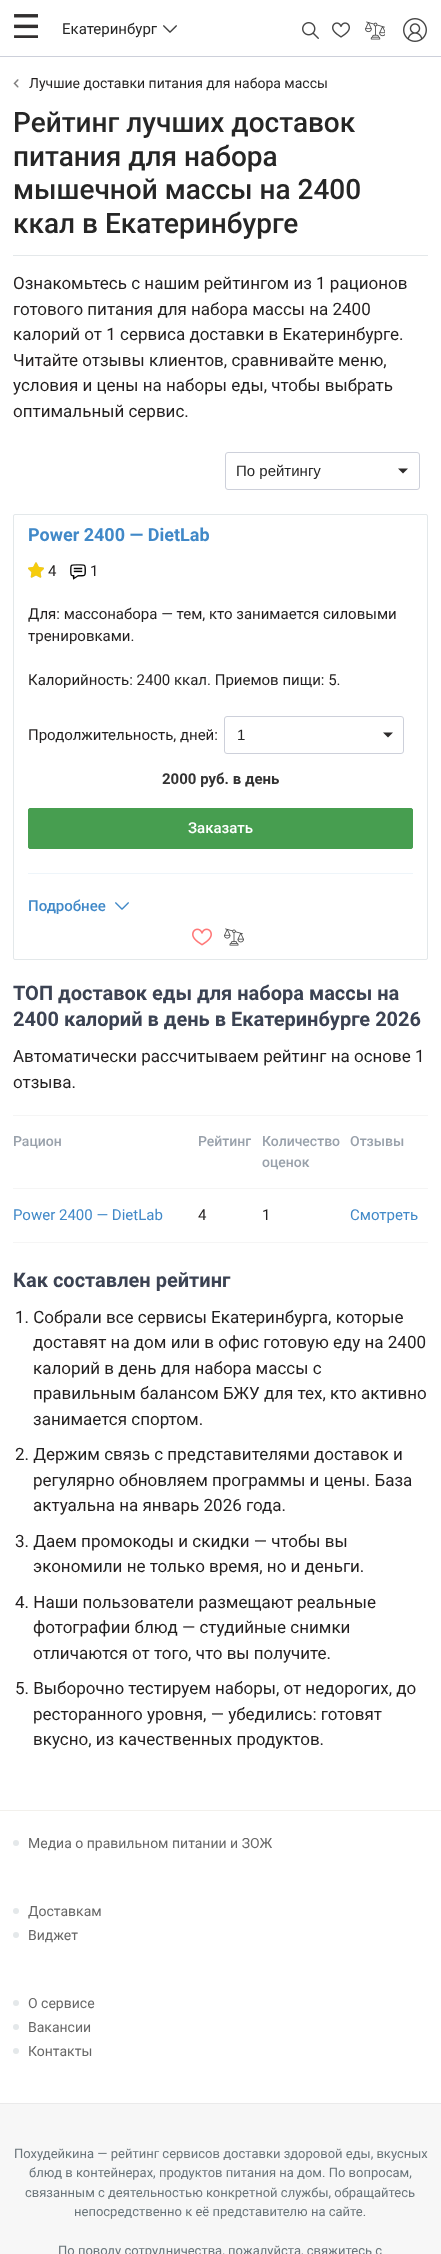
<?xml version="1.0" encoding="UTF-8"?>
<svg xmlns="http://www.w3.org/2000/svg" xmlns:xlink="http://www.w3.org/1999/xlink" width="441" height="2254">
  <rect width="100%" height="100%" fill="#ffffff" />
  <rect y="56" width="441" height="1" fill="#cdd0da" />
  <image x="14" y="14" width="24" height="24" xlink:href="image1.png" />
  <image x="163" y="25" width="14" height="8" xlink:href="image2.png" />
  <image x="302" y="22" width="17" height="17" xlink:href="image3.png" />
  <image x="332" y="22" width="18" height="16" xlink:href="image4.png" />
  <image x="365" y="21" width="20" height="19" xlink:href="image5.png" />
  <image x="403" y="18" width="24" height="24" xlink:href="image6.png" />
  <image x="13" y="79" width="6" height="9" xlink:href="image7.png" />
  <rect x="13" y="255" width="415" height="1" fill="#e4e8ea" />
  <path d="M 398 468.5 l 5 5 l 5 -5 z" fill="#2d2b2b" />
  <rect x="225.5" y="452.5" width="194" height="37" rx="2.5" fill="none" stroke="#cdd0da" />
  <rect x="13.5" y="514.5" width="414" height="445" rx="1.5" fill="none" stroke="#e3e8ea" />
  <image x="28" y="562" width="16" height="16" xlink:href="image8.png" />
  <image x="28" y="562" width="16" height="16" xlink:href="image9.png" />
  <image x="70" y="564" width="16" height="16" xlink:href="image10.png" />
  <path d="M 383 732.5 l 5 5 l 5 -5 z" fill="#2d2b2b" />
  <rect x="224.5" y="716.5" width="179" height="37" rx="2.5" fill="none" stroke="#cdd0da" />
  <rect x="28.5" y="808.5" width="384" height="40" rx="1.5" fill="#479e50" stroke="#479e50" />
  <rect x="28" y="873" width="385" height="1" fill="#eef5fa" />
  <image x="115" y="902" width="14" height="8" xlink:href="image11.png" />
  <image x="192" y="928" width="20" height="18" xlink:href="image12.png" />
  <image x="224" y="928" width="20" height="18" xlink:href="image13.png" />
  <rect x="13" y="1115" width="415" height="1" fill="#f5f5f5" />
  <rect x="13" y="1188" width="415" height="1" fill="#f5f5f5" />
  <rect x="13" y="1242" width="415" height="1" fill="#f5f5f5" />
  <rect y="1810" width="441" height="1" fill="#f2f0ec" />
  <circle cx="16" cy="1843" r="3" fill="#e4e8ea" />
  <circle cx="16" cy="1911" r="3" fill="#e4e8ea" />
  <circle cx="16" cy="1935" r="3" fill="#e4e8ea" />
  <circle cx="16" cy="2003" r="3" fill="#e4e8ea" />
  <circle cx="16" cy="2027" r="3" fill="#e4e8ea" />
  <circle cx="16" cy="2051" r="3" fill="#e4e8ea" />
  <rect y="2104" width="441" height="150" fill="#f7f7f7" />
  <rect y="2103" width="441" height="1" fill="#eaeaea" />
  <text x="62" y="34" style="font-family: Roboto; font-size: 15px; fill: #262626">Екатеринбург</text>
  <text x="29" y="88" style="font-family: Roboto; font-size: 14px; fill: #221f1f">Лучшие доставки питания для набора массы</text>
  <text x="13" y="132" style="font-family: Roboto; font-size: 28px; font-weight: 500; fill: #262626">Рейтинг лучших доставок</text>
  <text x="13" y="166" style="font-family: Roboto; font-size: 28px; font-weight: 500; fill: #262626">питания для набора</text>
  <text x="13" y="199" style="font-family: Roboto; font-size: 28px; font-weight: 500; fill: #262626">мышечной массы на 2400</text>
  <text x="13" y="233" style="font-family: Roboto; font-size: 28px; font-weight: 500; fill: #262626">ккал в Екатеринбурге</text>
  <text x="13" y="289" style="font-family: Roboto; font-size: 17px; fill: #221f1f">Ознакомьтесь с нашим рейтингом из 1 рационов</text>
  <text x="13" y="315" style="font-family: Roboto; font-size: 17px; fill: #221f1f">готового питания для набора массы на 2400</text>
  <text x="13" y="340" style="font-family: Roboto; font-size: 17px; fill: #221f1f">калорий от 1 сервиса доставки в Екатеринбурге.</text>
  <text x="13" y="366" style="font-family: Roboto; font-size: 17px; fill: #221f1f">Читайте отзывы клиентов, сравнивайте меню,</text>
  <text x="13" y="391" style="font-family: Roboto; font-size: 17px; fill: #221f1f">условия и цены на наборы еды, чтобы выбрать</text>
  <text x="13" y="417" style="font-family: Roboto; font-size: 17px; fill: #221f1f">оптимальный сервис.</text>
  <text x="236" y="476" style="font-family: Liberation Sans; font-size: 15px; fill: #262626">По рейтингу</text>
  <text x="28" y="541" style="font-family: Roboto; font-size: 18px; font-weight: bold; fill: #4189c8">Power 2400 — DietLab</text>
  <text x="48" y="576" style="font-family: Roboto; font-size: 15px; fill: #221f1f">4</text>
  <text x="90" y="576" style="font-family: Roboto; font-size: 15px; fill: #221f1f">1</text>
  <text x="28" y="619" style="font-family: Roboto; font-size: 15px; fill: #221f1f">Для: массонабора — тем, кто занимается силовыми</text>
  <text x="28" y="641" style="font-family: Roboto; font-size: 15px; fill: #221f1f">тренировками.</text>
  <text x="28" y="685" style="font-family: Roboto; font-size: 15px; fill: #221f1f">Калорийность: 2400 ккал. Приемов пищи: 5.</text>
  <text x="28" y="740" style="font-family: Roboto; font-size: 15px; fill: #221f1f">Продолжительность, дней:</text>
  <text x="237" y="740" style="font-family: Liberation Sans; font-size: 15px; fill: #262626">1</text>
  <text x="162" y="784" style="font-family: Roboto; font-size: 15px; font-weight: bold; fill: #333333">2000 руб. в день</text>
  <text x="188" y="833" style="font-family: Roboto; font-size: 15px; font-weight: 500; fill: #ffffff">Заказать</text>
  <text x="28" y="911" style="font-family: Roboto; font-size: 15px; font-weight: 500; fill: #4189c8">Подробнее</text>
  <text x="13" y="1000" style="font-family: Roboto; font-size: 20px; font-weight: bold; fill: #3c4353">ТОП доставок еды для набора массы на</text>
  <text x="13" y="1026" style="font-family: Roboto; font-size: 20px; font-weight: bold; fill: #3c4353">2400 калорий в день в Екатеринбурге 2026</text>
  <text x="13" y="1062" style="font-family: Roboto; font-size: 17px; fill: #221f1f">Автоматически рассчитываем рейтинг на основе 1</text>
  <text x="13" y="1088" style="font-family: Roboto; font-size: 17px; fill: #221f1f">отзыва.</text>
  <text x="13" y="1146" style="font-family: Roboto; font-size: 14px; font-weight: 500; fill: #99a1ab">Рацион</text>
  <text x="198" y="1146" style="font-family: Roboto; font-size: 14px; font-weight: 500; fill: #99a1ab">Рейтинг</text>
  <text x="262" y="1146" style="font-family: Roboto; font-size: 14px; font-weight: 500; fill: #99a1ab">Количество</text>
  <text x="262" y="1167" style="font-family: Roboto; font-size: 14px; font-weight: 500; fill: #99a1ab">оценок</text>
  <text x="350" y="1146" style="font-family: Roboto; font-size: 14px; font-weight: 500; fill: #99a1ab">Отзывы</text>
  <text x="13" y="1220" style="font-family: Roboto; font-size: 15px; fill: #4189c8">Power 2400 — DietLab</text>
  <text x="198" y="1220" style="font-family: Roboto; font-size: 15px; fill: #221f1f">4</text>
  <text x="262" y="1220" style="font-family: Roboto; font-size: 15px; fill: #221f1f">1</text>
  <text x="350" y="1220" style="font-family: Roboto; font-size: 15px; fill: #4189c8">Смотреть</text>
  <text x="13" y="1287" style="font-family: Roboto; font-size: 20px; font-weight: bold; fill: #3c4353">Как составлен рейтинг</text>
  <text x="15" y="1323" style="font-family: Roboto; font-size: 17px; fill: #221f1f">1. Собрали все сервисы Екатеринбурга, которые</text>
  <text x="33" y="1348" style="font-family: Roboto; font-size: 17px; fill: #221f1f">доставят на дом или в офис готовую еду на 2400</text>
  <text x="33" y="1374" style="font-family: Roboto; font-size: 17px; fill: #221f1f">калорий в день для набора массы с</text>
  <text x="33" y="1399" style="font-family: Roboto; font-size: 17px; fill: #221f1f">правильным балансом БЖУ для тех, кто активно</text>
  <text x="33" y="1425" style="font-family: Roboto; font-size: 17px; fill: #221f1f">занимается спортом.</text>
  <text x="15" y="1460" style="font-family: Roboto; font-size: 17px; fill: #221f1f">2. Держим связь с представителями доставок и</text>
  <text x="33" y="1486" style="font-family: Roboto; font-size: 17px; fill: #221f1f">регулярно обновляем программы и цены. База</text>
  <text x="33" y="1511" style="font-family: Roboto; font-size: 17px; fill: #221f1f">актуальна на январь 2026 года.</text>
  <text x="15" y="1547" style="font-family: Roboto; font-size: 17px; fill: #221f1f">3. Даем промокоды и скидки — чтобы вы</text>
  <text x="33" y="1572" style="font-family: Roboto; font-size: 17px; fill: #221f1f">экономили не только время, но и деньги.</text>
  <text x="15" y="1608" style="font-family: Roboto; font-size: 17px; fill: #221f1f">4. Наши пользователи размещают реальные</text>
  <text x="33" y="1633" style="font-family: Roboto; font-size: 17px; fill: #221f1f">фотографии блюд — студийные снимки</text>
  <text x="33" y="1659" style="font-family: Roboto; font-size: 17px; fill: #221f1f">отличаются от того, что вы получите.</text>
  <text x="15" y="1694" style="font-family: Roboto; font-size: 17px; fill: #221f1f">5. Выборочно тестируем наборы, от недорогих, до</text>
  <text x="33" y="1720" style="font-family: Roboto; font-size: 17px; fill: #221f1f">ресторанного уровня, — убедились: готовят</text>
  <text x="33" y="1745" style="font-family: Roboto; font-size: 17px; fill: #221f1f">вкусно, из качественных продуктов.</text>
  <text x="28" y="1848" style="font-family: Roboto; font-size: 14px; fill: #676767">Медиа о правильном питании и ЗОЖ</text>
  <text x="28" y="1916" style="font-family: Roboto; font-size: 14px; fill: #676767">Доставкам</text>
  <text x="28" y="1940" style="font-family: Roboto; font-size: 14px; fill: #676767">Виджет</text>
  <text x="28" y="2008" style="font-family: Roboto; font-size: 14px; fill: #676767">О сервисе</text>
  <text x="28" y="2032" style="font-family: Roboto; font-size: 14px; fill: #676767">Вакансии</text>
  <text x="28" y="2056" style="font-family: Roboto; font-size: 14px; fill: #676767">Контакты</text>
  <text x="14" y="2158" style="font-family: Roboto; font-size: 13px; fill: #69747a">Похудейкина — рейтинг сервисов доставки здоровой еды, вкусных</text>
  <text x="29" y="2177" style="font-family: Roboto; font-size: 13px; fill: #69747a">блюд в контейнерах, продуктов питания на дом. По вопросам,</text>
  <text x="25" y="2197" style="font-family: Roboto; font-size: 13px; fill: #69747a">связанным с деятельностью конкретной службы, обращайтесь</text>
  <text x="74" y="2216" style="font-family: Roboto; font-size: 13px; fill: #69747a">непосредственно к её представителю на сайте.</text>
  <text x="58" y="2255" style="font-family: Roboto; font-size: 13px; fill: #69747a">По поводу сотрудничества, пожалуйста, свяжитесь с</text>
</svg>
